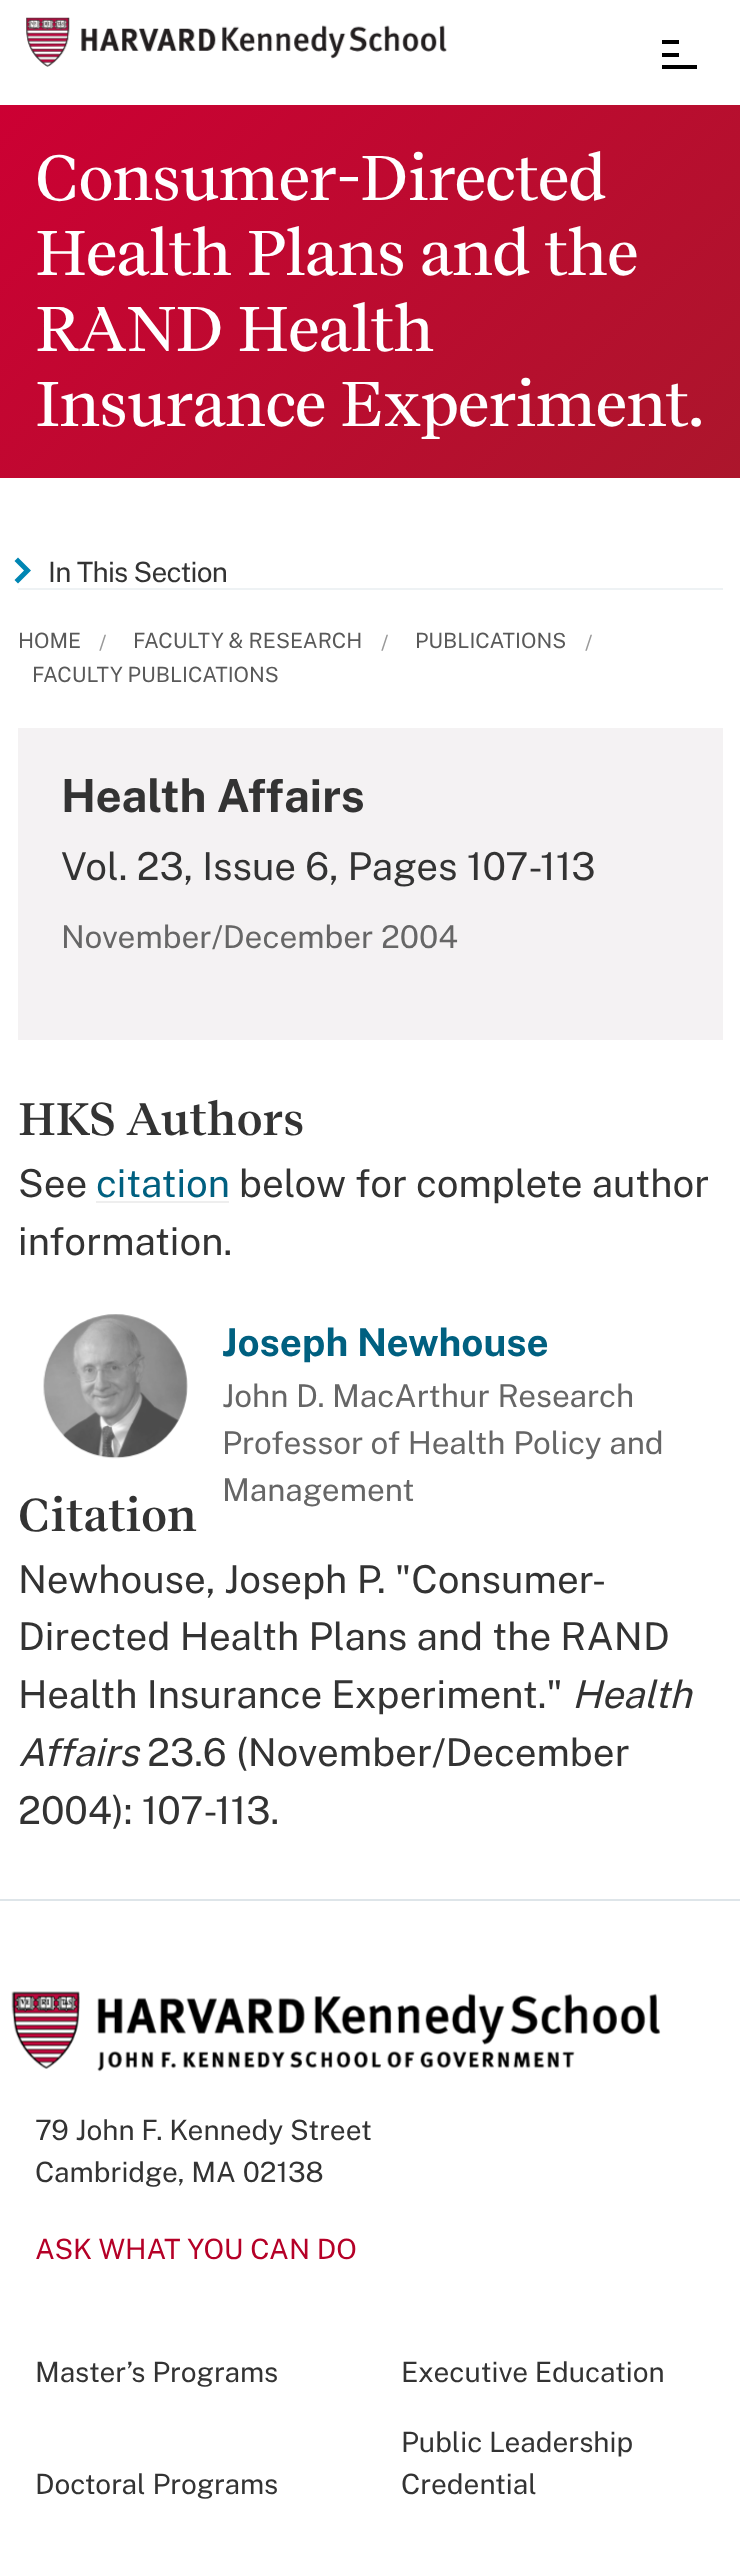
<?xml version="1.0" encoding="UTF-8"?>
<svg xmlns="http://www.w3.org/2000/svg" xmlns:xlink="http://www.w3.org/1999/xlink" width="740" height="2554">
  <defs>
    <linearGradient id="g1" gradientUnits="userSpaceOnUse" x1="92" y1="13" x2="648" y2="570"><stop offset="0" stop-color="#cc0033" /><stop offset="1" stop-color="#ac162c" /></linearGradient>
  </defs>
  <rect width="100%" height="100%" fill="#ffffff" />
  <image x="26" y="17" width="421" height="50" xlink:href="image1.png" />
  <rect x="662" y="40" width="17" height="4" fill="#000000" />
  <rect x="662" y="53" width="17" height="4" fill="#000000" />
  <rect x="662" y="65" width="35" height="4" fill="#000000" />
  <rect y="105" width="740" height="373" fill="url(#g1)" />
  <rect x="18" y="588" width="705" height="2" fill="#eef2f4" />
  <path d="M 31 570.5 l -13 -13 l -3.5 3.5 l 9.5 9.5 l -9.5 9.5 l 3.5 3.5 z" fill="#0086b3" />
  <rect x="18" y="728" width="705" height="312" fill="#f4f2f3" />
  <rect x="96" y="1201" width="133" height="2" fill="#eeeeee" />
  <image x="43" y="1314" width="145" height="145" xlink:href="image2.png" />
  <rect y="1899" width="740" height="2" fill="#dee5e9" />
  <image x="11" y="1991" width="650" height="81" xlink:href="image3.png" />
  <text x="35" y="200" style="font-family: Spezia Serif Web; font-size: 63px; font-weight: 500; letter-spacing: -1.75px; fill: #ffffff">Consumer-Directed</text>
  <text x="35" y="275" word-spacing="-0.5" style="font-family: Spezia Serif Web; font-size: 63px; font-weight: 500; letter-spacing: -1.75px; fill: #ffffff">Health Plans and the</text>
  <text x="35" y="351" style="font-family: Spezia Serif Web; font-size: 63px; font-weight: 500; letter-spacing: -1.75px; fill: #ffffff">RAND Health</text>
  <text x="35" y="426" style="font-family: Spezia Serif Web; font-size: 63px; font-weight: 500; letter-spacing: -1.75px; fill: #ffffff">Insurance Experiment.</text>
  <text x="48" y="582" style="font-family: Public Sans; font-size: 28px; font-weight: 100; letter-spacing: -0.75px; fill: #333333">In This Section</text>
  <text x="18" y="648" style="font-family: Public Sans; font-size: 21px; font-weight: 100; fill: #595959">HOME</text>
  <text x="99" y="650" style="font-family: Public Sans; font-size: 21px; font-weight: 100; fill: #999999">/</text>
  <text x="133" y="648" style="font-family: Public Sans; font-size: 21px; font-weight: 100; fill: #595959">FACULTY &amp; RESEARCH</text>
  <text x="381" y="650" style="font-family: Public Sans; font-size: 21px; font-weight: 100; fill: #999999">/</text>
  <text x="415" y="648" style="font-family: Public Sans; font-size: 21px; font-weight: 100; fill: #595959">PUBLICATIONS</text>
  <text x="585" y="650" style="font-family: Public Sans; font-size: 21px; font-weight: 100; fill: #999999">/</text>
  <text x="32" y="682" style="font-family: Public Sans; font-size: 21px; font-weight: 100; fill: #595959">FACULTY PUBLICATIONS</text>
  <text x="61" y="812" style="font-family: 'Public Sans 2'; font-size: 45.5px; font-weight: 100; fill: #333333">Health Affairs</text>
  <text x="61" y="880" style="font-family: Public Sans; font-size: 38.5px; font-weight: 100; fill: #333333">Vol. 23, Issue 6, Pages 107-113</text>
  <text x="61" y="948" style="font-family: Public Sans; font-size: 31.5px; font-weight: 100; fill: #666666">November/December 2004</text>
  <text x="18" y="1135" style="font-family: Spezia Serif Web; font-size: 45.5px; font-weight: 600; letter-spacing: -0.5px; fill: #333333">HKS Authors</text>
  <text x="18" y="1197" style="font-family: Public Sans; font-size: 38.5px; font-weight: 100; fill: #333333">See</text>
  <text x="96" y="1197" style="font-family: Public Sans; font-size: 38.5px; font-weight: 100; fill: #006080">citation</text>
  <text x="239" y="1197" style="font-family: Public Sans; font-size: 38.5px; font-weight: 100; fill: #333333">below for complete author</text>
  <text x="18" y="1255" style="font-family: Public Sans; font-size: 38.5px; font-weight: 100; fill: #333333">information.</text>
  <text x="222" y="1356" style="font-family: 'Public Sans 2'; font-size: 38.5px; font-weight: 100; fill: #006080">Joseph Newhouse</text>
  <text x="222" y="1407" style="font-family: Public Sans; font-size: 31.5px; font-weight: 100; fill: #666666">John D. MacArthur Research</text>
  <text x="222" y="1454" style="font-family: Public Sans; font-size: 31.5px; font-weight: 100; fill: #666666">Professor of Health Policy and</text>
  <text x="222" y="1501" style="font-family: Public Sans; font-size: 31.5px; font-weight: 100; fill: #666666">Management</text>
  <text x="18" y="1531" style="font-family: Spezia Serif Web; font-size: 45.5px; font-weight: 600; letter-spacing: -0.5px; fill: #333333">Citation</text>
  <text x="18" y="1593" style="font-family: Public Sans; font-size: 38.5px; font-weight: 100; fill: #333333">Newhouse, Joseph P. "Consumer-</text>
  <text x="18" y="1650" style="font-family: Public Sans; font-size: 38.5px; font-weight: 100; fill: #333333">Directed Health Plans and the RAND</text>
  <text x="18" y="1708" style="font-family: Public Sans; font-size: 38.5px; font-weight: 100; fill: #333333">Health Insurance Experiment."</text>
  <text x="572" y="1708" style="font-family: Public Sans; font-size: 38.5px; font-weight: 100; font-style: italic; fill: #333333">Health</text>
  <text x="18" y="1766" style="font-family: Public Sans; font-size: 38.5px; font-weight: 100; font-style: italic; fill: #333333">Affairs</text>
  <text x="147" y="1766" style="font-family: Public Sans; font-size: 38.5px; font-weight: 100; fill: #333333">23.6 (November/December</text>
  <text x="18" y="1824" style="font-family: Public Sans; font-size: 38.5px; font-weight: 100; fill: #333333">2004): 107-113.</text>
  <text x="35" y="2140" style="font-family: Public Sans; font-size: 28px; font-weight: 100; fill: #333333">79 John F. Kennedy Street</text>
  <text x="35" y="2182" style="font-family: Public Sans; font-size: 28px; font-weight: 100; fill: #333333">Cambridge, MA 02138</text>
  <text x="35" y="2259" style="font-family: Public Sans; font-size: 28px; font-weight: 100; fill: #b50027">ASK WHAT YOU CAN DO</text>
  <text x="35" y="2382" style="font-family: Public Sans; font-size: 28px; font-weight: 100; fill: #333333">Master’s Programs</text>
  <text x="401" y="2382" style="font-family: Public Sans; font-size: 28px; font-weight: 100; fill: #333333">Executive Education</text>
  <text x="35" y="2494" style="font-family: Public Sans; font-size: 28px; font-weight: 100; fill: #333333">Doctoral Programs</text>
  <text x="401" y="2452" style="font-family: Public Sans; font-size: 28px; font-weight: 100; fill: #333333">Public Leadership</text>
  <text x="401" y="2494" style="font-family: Public Sans; font-size: 28px; font-weight: 100; fill: #333333">Credential</text>
</svg>
